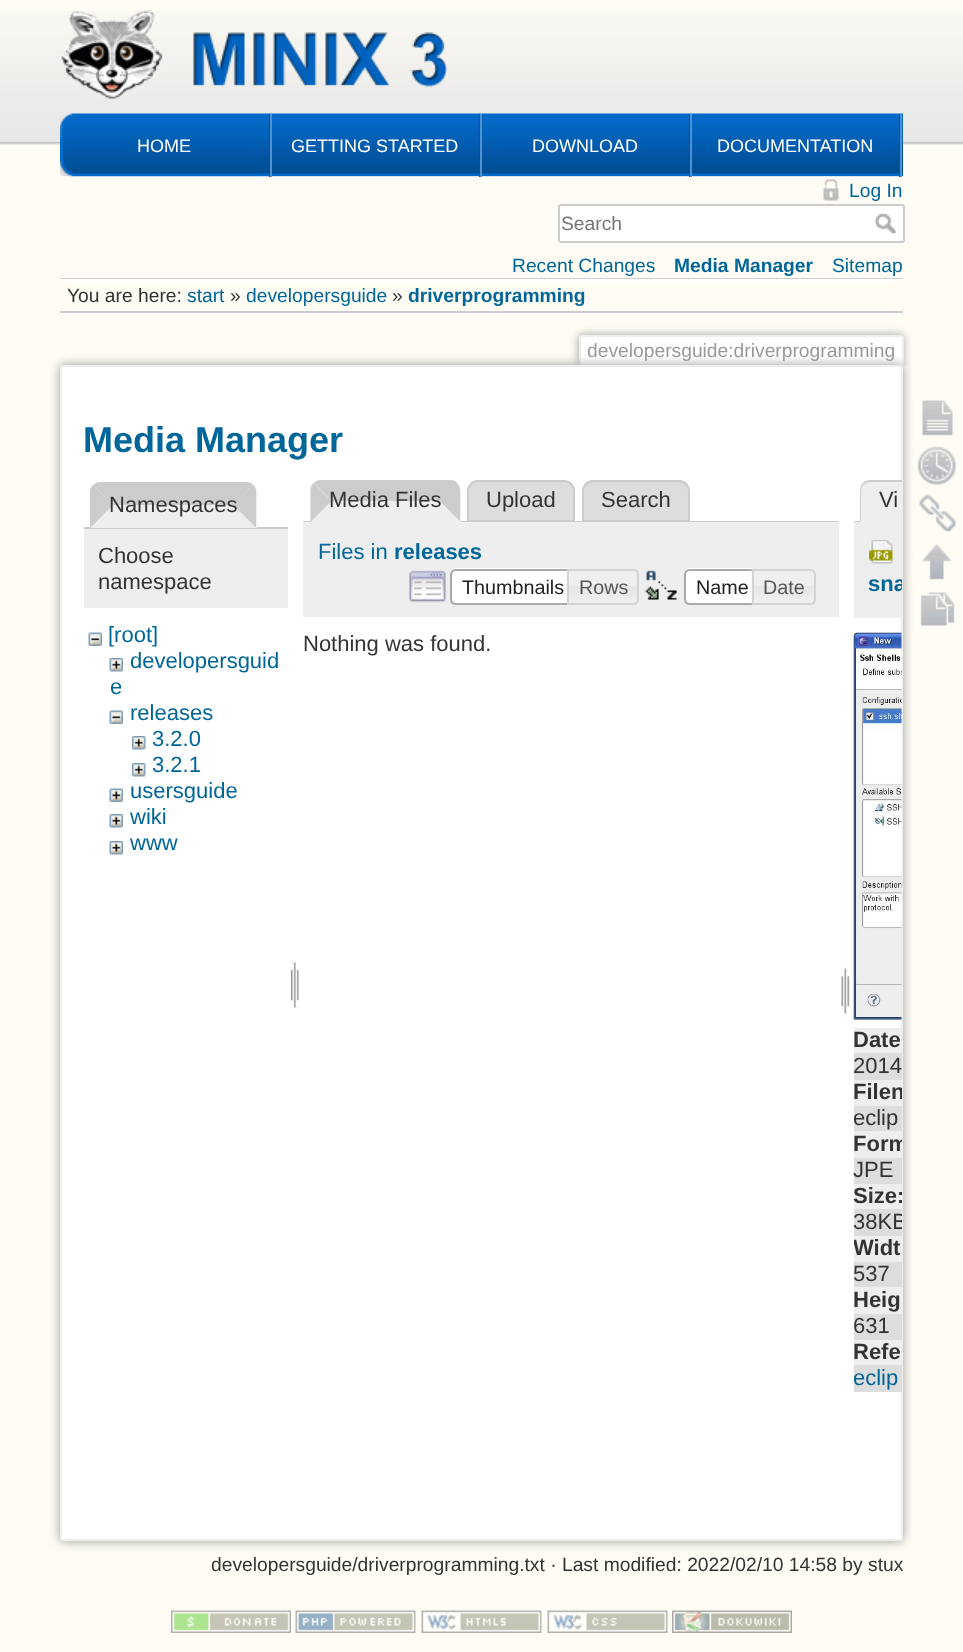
<?xml version="1.0" encoding="UTF-8"?>
<svg xmlns="http://www.w3.org/2000/svg" xmlns:xlink="http://www.w3.org/1999/xlink" width="963" height="1652">
  <defs>
    <clipPath id="clip1"><rect x="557" y="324" width="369" height="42" /></clipPath>
    <clipPath id="clip2"><rect x="62" y="366" width="840" height="1173" rx="1.5" /></clipPath>
    <clipPath id="clip3"><rect x="854" y="633" width="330" height="869" /></clipPath>
  </defs>
  <rect width="100%" height="100%" fill="#fefcf4" />
  <image x="0" y="11" width="963" height="134" xlink:href="image1.png" />
  <image x="60" y="10" width="387" height="89" xlink:href="image2.png" />
  <image x="60" y="113" width="210" height="64" xlink:href="image3.png" />
  <rect x="269" y="114" width="1" height="63" fill="#094f90" />
  <image x="270" y="113" width="210" height="64" xlink:href="image4.png" />
  <rect x="479" y="114" width="1" height="63" fill="#094f90" />
  <rect x="270" y="114" width="2" height="63" fill="#5092d0" />
  <image x="480" y="113" width="210" height="64" xlink:href="image4.png" />
  <rect x="689" y="114" width="1" height="63" fill="#094f90" />
  <rect x="480" y="114" width="2" height="63" fill="#5092d0" />
  <image x="690" y="113" width="210" height="64" xlink:href="image4.png" />
  <rect x="899" y="114" width="1" height="63" fill="#094f90" />
  <rect x="690" y="114" width="2" height="63" fill="#5092d0" />
  <image x="900" y="113" width="3" height="64" xlink:href="image5.png" />
  <rect x="900" y="114" width="2" height="63" fill="#5092d0" />
  <image x="823" y="179" width="16" height="22" xlink:href="image6.png" />
  <rect x="559" y="205" width="345" height="37" rx="2" fill="#ffffff" stroke="#cccccc" stroke-width="2" />
  <image x="874" y="213" width="22" height="21" xlink:href="image7.png" />
  <rect x="60" y="278" width="843" height="1" fill="#cccccc" />
  <rect x="60" y="313" width="843" height="1" fill="#ffffff" />
  <rect x="60" y="279" width="843" height="2" fill="#ffffff" />
  <rect x="60" y="311" width="843" height="2" fill="#cccccc" />
  <g clip-path="url(#clip1)">
    <rect x="579" y="335" width="324" height="31" rx="3" fill="#999999" filter="blur(5px)" />
  </g>
  <rect x="581" y="337" width="321" height="29" fill="#ffffff" />
  <rect x="581" y="335" width="321" height="2" fill="#eeeeee" />
  <rect x="902" y="336" width="2" height="30" fill="#eeeeee" />
  <rect x="579" y="336" width="2" height="30" fill="#eeeeee" />
  <rect x="60" y="365" width="843" height="1176" rx="3" fill="#999999" filter="blur(5.5px)" />
  <rect x="61" y="366" width="841" height="1174" rx="2" fill="#ffffff" stroke="#eeeeee" stroke-width="2" />
  <rect x="84" y="527" width="204" height="2" fill="#cccccc" />
  <path d="M 101 482 h 145 c 6 0 11 5 11 11 v 35 h -167 v -35 c 0 -6 5 -11 11 -11 z" fill="#eeeeee" />
  <path d="M 101 482 c -3 0 -6 1 -8 3 l 20 20 h 120 l 20 -20 c -1 -2 -4 -3 -7 -3 z" fill="#cccccc" />
  <path d="M 256 528 v -36 c 0 -3 -1 -6 -3 -7 l -20 20 z" fill="#cccccc" />
  <path d="M 256 528 l -23 -23 h -120 l -23 23 z" fill="#eeeeee" />
  <path d="M 90 528 l 23 -23 l -20 -20 c -2 1 -3 4 -3 7 z" fill="#cccccc" />
  <rect x="84" y="529" width="204" height="79" fill="#eeeeee" />
  <image x="88" y="632" width="14" height="14" xlink:href="image8.png" />
  <image x="109" y="658" width="14" height="14" xlink:href="image9.png" />
  <image x="109" y="710" width="14" height="14" xlink:href="image8.png" />
  <image x="132" y="736" width="14" height="14" xlink:href="image10.png" />
  <image x="132" y="763" width="14" height="14" xlink:href="image10.png" />
  <image x="109" y="788" width="14" height="14" xlink:href="image11.png" />
  <image x="109" y="814" width="14" height="14" xlink:href="image9.png" />
  <image x="109" y="841" width="14" height="14" xlink:href="image9.png" />
  <image x="291" y="961" width="8" height="47" xlink:href="image12.png" />
  <path d="M 478 481 h 86 c 5.5 0 10 4.5 10 10 v 30 h -106 v -30 c 0 -5.5 4.5 -10 10 -10 z" fill="#dddddd" stroke="#cccccc" stroke-width="2" />
  <path d="M 593 481 h 86 c 5.5 0 10 4.5 10 10 v 30 h -106 v -30 c 0 -5.5 4.5 -10 10 -10 z" fill="#dddddd" stroke="#cccccc" stroke-width="2" />
  <rect x="303" y="521" width="536" height="1" fill="#cccccc" />
  <path d="M 322 480 h 128 c 6 0 11 5 11 11 v 31 h -150 v -31 c 0 -6 5 -11 11 -11 z" fill="#eeeeee" />
  <path d="M 321 480 h 129 c 3 0 6 1 7 3 l -17 18 h -108 l -18 -18 c 1 -2 4 -3 7 -3 z" fill="#cccccc" />
  <path d="M 457 483 l -17.5 18 l 20.5 20.5 v -30.5 c 0 -3 -1 -6 -3 -8 z" fill="#cccccc" />
  <path d="M 460 522 l -20 -21 h -108 l -22 21 z" fill="#eeeeee" />
  <path d="M 310.5 522 l 21 -21 l -18 -18 c -1.5 1.5 -2.5 3 -3 5 z" fill="#cccccc" />
  <rect x="303" y="522" width="536" height="95" fill="#eeeeee" />
  <image x="409" y="570" width="37" height="33" xlink:href="image13.png" />
  <path d="M 456 569 h 119 v 36 h -119 c -3.5 0 -6 -2.5 -6 -6 v -24 c 0 -3.5 2.5 -6 6 -6 z" fill="#ffffff" />
  <image x="450" y="568" width="117" height="5" xlink:href="image14.png" />
  <path d="M 456 570 h 118 v 34 h -118 c -3 0 -5 -2 -5 -5 v -24 c 0 -3 2 -5 5 -5 z" fill="none" stroke="#aaaaaa" stroke-width="2" />
  <image x="567" y="568" width="72" height="35" xlink:href="image15.png" />
  <path d="M 568 570 h 65 c 3 0 5 2 5 5 v 24 c 0 3 -2 5 -5 5 h -65 z" fill="none" stroke="#d3d3d3" stroke-width="2" />
  <image x="644" y="570" width="33" height="30" xlink:href="image16.png" />
  <path d="M 690 569 h 69 v 36 h -69 c -3.5 0 -6 -2.5 -6 -6 v -24 c 0 -3.5 2.5 -6 6 -6 z" fill="#ffffff" />
  <image x="684" y="568" width="68" height="5" xlink:href="image17.png" />
  <path d="M 690 570 h 68 v 34 h -68 c -3 0 -5 -2 -5 -5 v -24 c 0 -3 2 -5 5 -5 z" fill="none" stroke="#aaaaaa" stroke-width="2" />
  <image x="751" y="568" width="65" height="36" xlink:href="image18.png" />
  <path d="M 753 570 h 57 c 3 0 5 2 5 5 v 24 c 0 3 -2 5 -5 5 h -57 z" fill="none" stroke="#d3d3d3" stroke-width="2" />
  <image x="841" y="967" width="9" height="47" xlink:href="image19.png" />
  <path d="M 871 480 h 31 v 42 h -42 v -31 c 0 -6 5 -11 11 -11 z" fill="#eeeeee" />
  <path d="M 870 480 h 32 v 2 h -32 c -2.5 0 -4.5 1 -6 2.5 l -1 -1.5 c 1.5 -2 4 -3 7 -3 z" fill="#cccccc" />
  <path d="M 861.5 520 l -1.5 1.5 v -30.5 c 0 -3 1 -6 3 -8 l 1 1.5 c -2 1.5 -3 4 -3 6.5 v 29 z" fill="#cccccc" />
  <rect x="854" y="521" width="6" height="1" fill="#cccccc" />
  <rect x="854" y="522" width="47" height="96" fill="#eeeeee" />
  <image x="869" y="540" width="24" height="24" xlink:href="image20.png" />
  <image x="853" y="632" width="49" height="388" xlink:href="image21.png" />
  <rect x="854" y="1028" width="47" height="25" fill="#eeeeee" />
  <rect x="854" y="1053" width="48" height="27" fill="#dddddd" />
  <rect x="854" y="1080" width="47" height="26" fill="#eeeeee" />
  <rect x="854" y="1106" width="48" height="25" fill="#dddddd" />
  <rect x="854" y="1131" width="47" height="27" fill="#eeeeee" />
  <rect x="854" y="1158" width="48" height="26" fill="#dddddd" />
  <rect x="854" y="1184" width="47" height="25" fill="#eeeeee" />
  <rect x="854" y="1209" width="48" height="27" fill="#dddddd" />
  <rect x="854" y="1236" width="47" height="26" fill="#eeeeee" />
  <rect x="854" y="1262" width="48" height="25" fill="#dddddd" />
  <rect x="854" y="1287" width="47" height="27" fill="#eeeeee" />
  <rect x="854" y="1314" width="48" height="26" fill="#dddddd" />
  <rect x="854" y="1340" width="47" height="25" fill="#eeeeee" />
  <rect x="854" y="1365" width="48" height="27" fill="#dddddd" />
  <image x="922" y="400" width="31" height="36" xlink:href="image22.png" />
  <image x="917" y="446" width="39" height="39" xlink:href="image23.png" />
  <image x="919" y="494" width="37" height="38" xlink:href="image24.png" />
  <image x="922" y="544" width="30" height="36" xlink:href="image25.png" />
  <image x="920" y="592" width="35" height="34" xlink:href="image26.png" />
  <image x="171" y="1610" width="120" height="23" xlink:href="image27.png" />
  <image x="295" y="1610" width="121" height="23" xlink:href="image28.png" />
  <image x="421" y="1610" width="121" height="23" xlink:href="image29.png" />
  <image x="547" y="1610" width="121" height="23" xlink:href="image30.png" />
  <image x="672" y="1610" width="120" height="23" xlink:href="image31.png" />
  <text x="137" y="152" style="font-family: Liberation Sans; font-size: 18px; fill: #ffffff">HOME</text>
  <text x="291" y="152" style="font-family: Liberation Sans; font-size: 18px; fill: #ffffff">GETTING STARTED</text>
  <text x="532" y="152" style="font-family: Liberation Sans; font-size: 18px; fill: #ffffff">DOWNLOAD</text>
  <text x="717" y="152" style="font-family: Liberation Sans; font-size: 18px; fill: #ffffff">DOCUMENTATION</text>
  <text x="849" y="197" style="font-family: Liberation Sans; font-size: 19.25px; fill: #006699">Log In</text>
  <text x="561" y="230" style="font-family: Liberation Sans; font-size: 19.25px; fill: #757575">Search</text>
  <text x="512" y="272" style="font-family: Liberation Sans; font-size: 19.25px; fill: #006699">Recent Changes</text>
  <text x="674" y="272" style="font-family: Liberation Sans; font-size: 19.25px; font-weight: bold; fill: #006699">Media Manager</text>
  <text x="832" y="272" style="font-family: Liberation Sans; font-size: 19.25px; fill: #006699">Sitemap</text>
  <text x="67" y="302" style="font-family: Liberation Sans; font-size: 19.25px; fill: #333333">You are here:</text>
  <text x="187" y="302" style="font-family: Liberation Sans; font-size: 19.25px; fill: #006699">start</text>
  <text x="230" y="302" style="font-family: Liberation Sans; font-size: 19.25px; fill: #333333">»</text>
  <text x="246" y="302" style="font-family: Liberation Sans; font-size: 19.25px; fill: #006699">developersguide</text>
  <text x="392" y="302" style="font-family: Liberation Sans; font-size: 19.25px; fill: #333333">»</text>
  <text x="408" y="302" style="font-family: Liberation Sans; font-size: 19.25px; font-weight: bold; fill: #006699">driverprogramming</text>
  <text x="587" y="357" style="font-family: Liberation Sans; font-size: 19.25px; fill: #999999">developersguide:driverprogramming</text>
  <text x="83" y="452" style="font-family: Liberation Sans; font-size: 36px; font-weight: bold; fill: #006699">Media Manager</text>
  <text x="109" y="512" style="font-family: Liberation Sans; font-size: 22px; fill: #333333">Namespaces</text>
  <text x="98" y="563" style="font-family: Liberation Sans; font-size: 22px; fill: #333333">Choose</text>
  <text x="98" y="589" style="font-family: Liberation Sans; font-size: 22px; fill: #333333">namespace</text>
  <text x="108" y="642" style="font-family: Liberation Sans; font-size: 22px; fill: #006699">[root]</text>
  <text x="130" y="668" style="font-family: Liberation Sans; font-size: 22px; fill: #006699">developersguid</text>
  <text x="110" y="694" style="font-family: Liberation Sans; font-size: 22px; fill: #006699">e</text>
  <text x="130" y="720" style="font-family: Liberation Sans; font-size: 22px; fill: #006699">releases</text>
  <text x="152" y="746" style="font-family: Liberation Sans; font-size: 22px; fill: #006699">3.2.0</text>
  <text x="152" y="772" style="font-family: Liberation Sans; font-size: 22px; fill: #006699">3.2.1</text>
  <text x="130" y="798" style="font-family: Liberation Sans; font-size: 22px; fill: #006699">usersguide</text>
  <text x="130" y="824" style="font-family: Liberation Sans; font-size: 22px; fill: #006699">wiki</text>
  <text x="130" y="850" style="font-family: Liberation Sans; font-size: 22px; fill: #006699">www</text>
  <text x="329" y="507" style="font-family: Liberation Sans; font-size: 22px; fill: #333333">Media Files</text>
  <text x="486" y="507" style="font-family: Liberation Sans; font-size: 22px; fill: #333333">Upload</text>
  <text x="601" y="507" style="font-family: Liberation Sans; font-size: 22px; fill: #333333">Search</text>
  <text x="318" y="559" style="font-family: Liberation Sans; font-size: 22px; fill: #006699">Files in</text>
  <text x="394" y="559" style="font-family: Liberation Sans; font-size: 22px; font-weight: bold; fill: #006699">releases</text>
  <text x="462" y="594" style="font-family: Liberation Sans; font-size: 19.75px; fill: #212121">Thumbnails</text>
  <text x="579" y="594" style="font-family: Liberation Sans; font-size: 19.75px; fill: #555555">Rows</text>
  <text x="696" y="594" style="font-family: Liberation Sans; font-size: 19.75px; fill: #212121">Name</text>
  <text x="763" y="594" style="font-family: Liberation Sans; font-size: 19.75px; fill: #555555">Date</text>
  <text x="303" y="651" style="font-family: Liberation Sans; font-size: 22px; fill: #333333">Nothing was found.</text>
  <text x="879" y="507" style="font-family: Liberation Sans; font-size: 22px; fill: #333333">Vi</text>
  <g clip-path="url(#clip2)">
    <text x="868" y="591" style="font-family: Liberation Sans; font-size: 22px; font-weight: bold; fill: #006699">sna</text>
  </g>
  <text x="853" y="1047" style="font-family: Liberation Sans; font-size: 22px; font-weight: bold; fill: #333333">Date</text>
  <text x="853" y="1073" style="font-family: Liberation Sans; font-size: 22px; fill: #333333">2014</text>
  <g clip-path="url(#clip2)">
    <text x="853" y="1099" style="font-family: Liberation Sans; font-size: 22px; font-weight: bold; fill: #333333">Filen</text>
  </g>
  <text x="853" y="1125" style="font-family: Liberation Sans; font-size: 22px; fill: #333333">eclip</text>
  <g clip-path="url(#clip2)">
    <text x="853" y="1151" style="font-family: Liberation Sans; font-size: 22px; font-weight: bold; fill: #333333">Form</text>
  </g>
  <text x="853" y="1177" style="font-family: Liberation Sans; font-size: 22px; fill: #333333">JPE</text>
  <g clip-path="url(#clip2)">
    <text x="853" y="1203" style="font-family: Liberation Sans; font-size: 22px; font-weight: bold; fill: #333333">Size:</text>
    <text x="853" y="1229" style="font-family: Liberation Sans; font-size: 22px; fill: #333333">38KB</text>
  </g>
  <g clip-path="url(#clip3)">
    <text x="853" y="1255" style="font-family: Liberation Sans; font-size: 22px; font-weight: bold; fill: #333333">Widt</text>
  </g>
  <text x="853" y="1281" style="font-family: Liberation Sans; font-size: 22px; fill: #333333">537</text>
  <text x="853" y="1307" style="font-family: Liberation Sans; font-size: 22px; font-weight: bold; fill: #333333">Heig</text>
  <text x="853" y="1333" style="font-family: Liberation Sans; font-size: 22px; fill: #333333">631</text>
  <text x="853" y="1359" style="font-family: Liberation Sans; font-size: 22px; font-weight: bold; fill: #333333">Refe</text>
  <text x="853" y="1385" style="font-family: Liberation Sans; font-size: 22px; fill: #006699">eclip</text>
  <text x="211" y="1571" style="font-family: Liberation Sans; font-size: 19.25px; fill: #333333">developersguide/driverprogramming.txt · Last modified: 2022/02/10 14:58 by stux</text>
</svg>
